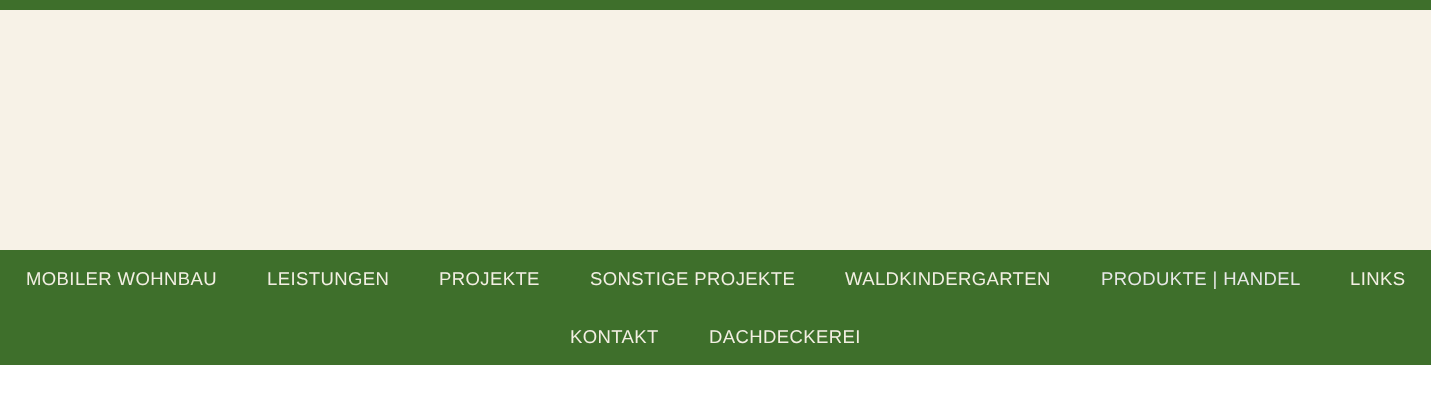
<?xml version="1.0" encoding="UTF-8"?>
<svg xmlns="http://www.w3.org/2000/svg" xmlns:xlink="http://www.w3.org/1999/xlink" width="1431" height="416">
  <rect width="100%" height="100%" fill="#ffffff" />
  <rect y="10" width="1431" height="240" fill="#f7f2e7" />
  <rect width="1431" height="10" fill="#3e6f2b" />
  <rect y="250" width="1431" height="115" fill="#3e6f2b" />
  <text x="26" y="285" style="font-family: Liberation Sans; font-size: 18.5px; letter-spacing: 0.4px; fill: #f3efe3">MOBILER WOHNBAU</text>
  <text x="267" y="285" style="font-family: Liberation Sans; font-size: 18.5px; letter-spacing: 0.4px; fill: #f3efe3">LEISTUNGEN</text>
  <text x="439" y="285" style="font-family: Liberation Sans; font-size: 18.5px; letter-spacing: 0.4px; fill: #f3efe3">PROJEKTE</text>
  <text x="590" y="285" style="font-family: Liberation Sans; font-size: 18.5px; letter-spacing: 0.4px; fill: #f3efe3">SONSTIGE PROJEKTE</text>
  <text x="845" y="285" style="font-family: Liberation Sans; font-size: 18.5px; letter-spacing: 0.4px; fill: #f3efe3">WALDKINDERGARTEN</text>
  <text x="1101" y="285" style="font-family: Liberation Sans; font-size: 18.5px; letter-spacing: 0.4px; fill: #e8e8e8">PRODUKTE | HANDEL</text>
  <text x="1350" y="285" style="font-family: Liberation Sans; font-size: 18.5px; letter-spacing: 0.4px; fill: #f3efe3">LINKS</text>
  <text x="570" y="343" style="font-family: Liberation Sans; font-size: 18.5px; letter-spacing: 0.4px; fill: #f3efe3">KONTAKT</text>
  <text x="709" y="343" style="font-family: Liberation Sans; font-size: 18.5px; letter-spacing: 0.4px; fill: #f3efe3">DACHDECKEREI</text>
</svg>
